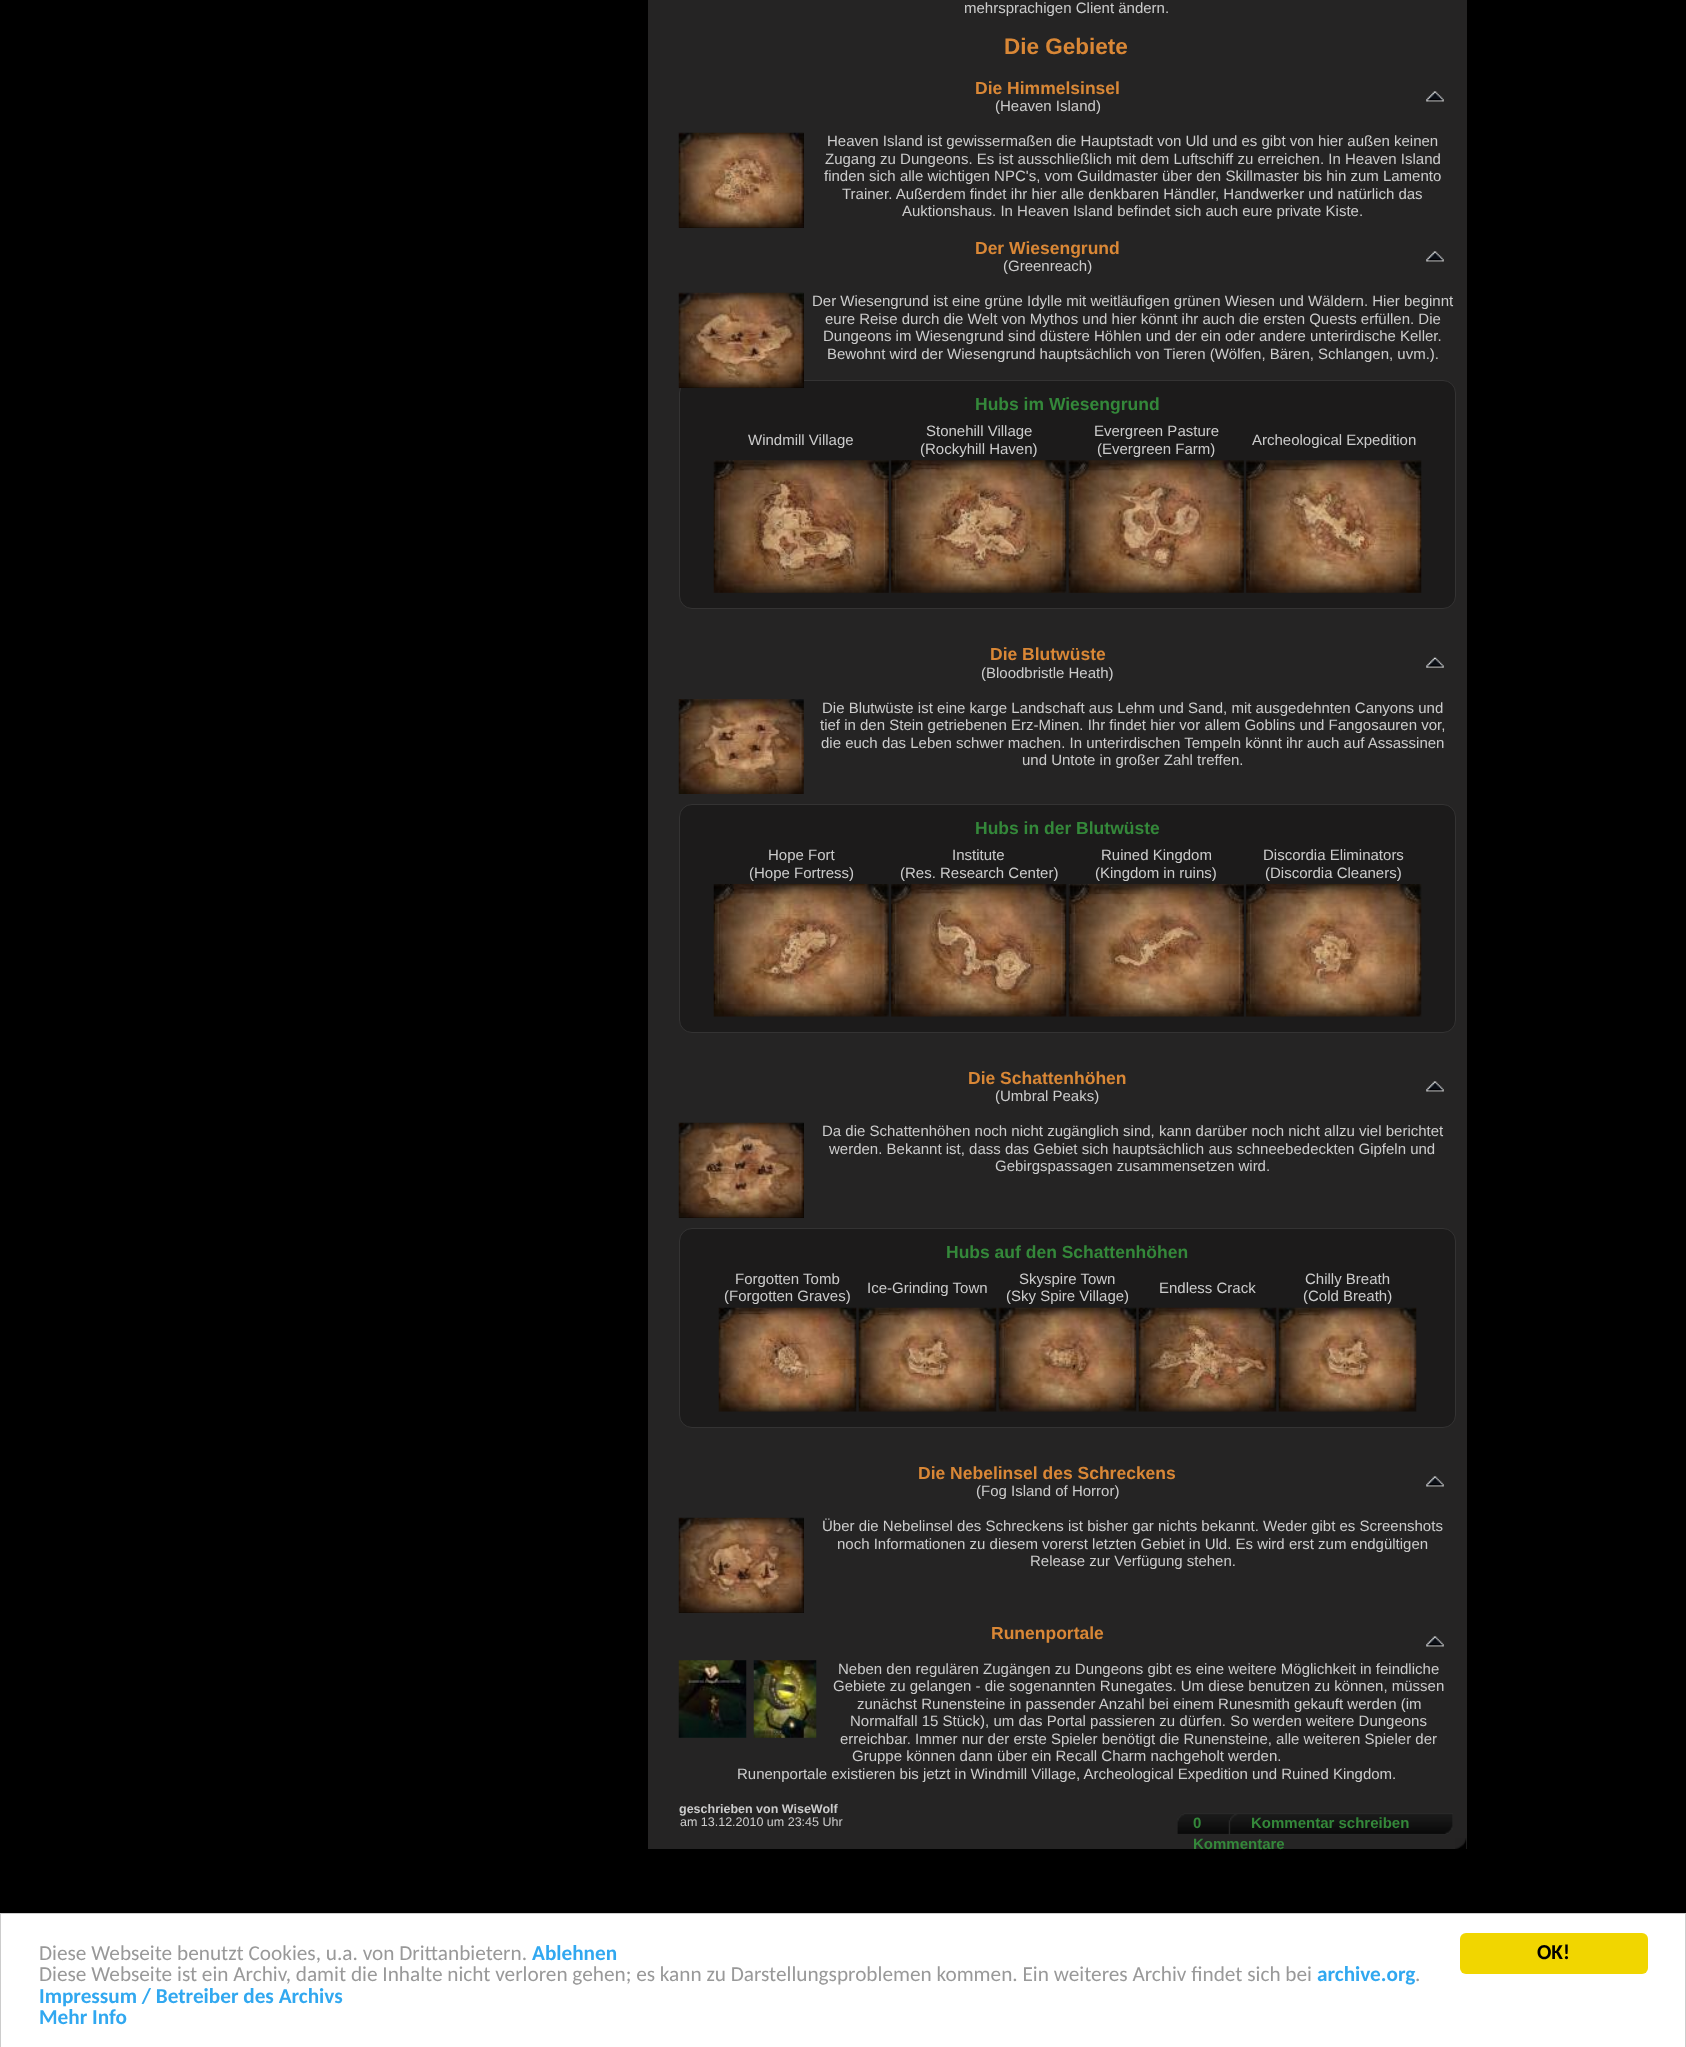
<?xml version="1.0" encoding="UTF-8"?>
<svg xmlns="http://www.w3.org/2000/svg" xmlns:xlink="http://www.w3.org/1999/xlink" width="1686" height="2047">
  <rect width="100%" height="100%" fill="#000000" />
  <rect x="648" width="819" height="1849" fill="#252424" />
  <image x="1426" y="91" width="18" height="11" xlink:href="image1.png" />
  <rect x="679" y="133" width="125" height="95" fill="#000000" />
  <image x="678" y="132" width="126" height="96" xlink:href="image2.png" />
  <image x="1426" y="251" width="18" height="11" xlink:href="image1.png" />
  <rect x="679.5" y="380.5" width="776" height="228" rx="12.5" fill="#1c1b1b" stroke="#343333" />
  <rect x="679" y="293" width="125" height="95" fill="#000000" />
  <image x="678" y="292" width="126" height="96" xlink:href="image3.png" />
  <image x="713" y="460" width="176" height="133" xlink:href="image4.png" />
  <image x="891" y="460" width="176" height="133" xlink:href="image5.png" />
  <image x="1068" y="460" width="176" height="133" xlink:href="image6.png" />
  <image x="1246" y="460" width="176" height="133" xlink:href="image7.png" />
  <image x="1426" y="657" width="18" height="11" xlink:href="image8.png" />
  <image x="678" y="699" width="126" height="95" xlink:href="image9.png" />
  <rect x="679.5" y="804.5" width="776" height="228" rx="12.5" fill="#1c1b1b" stroke="#343333" />
  <image x="713" y="884" width="176" height="133" xlink:href="image10.png" />
  <image x="891" y="884" width="176" height="133" xlink:href="image11.png" />
  <image x="1068" y="884" width="176" height="133" xlink:href="image12.png" />
  <image x="1246" y="884" width="176" height="133" xlink:href="image13.png" />
  <image x="1426" y="1081" width="18" height="11" xlink:href="image1.png" />
  <rect x="679" y="1123" width="125" height="95" fill="#000000" />
  <image x="678" y="1122" width="126" height="96" xlink:href="image14.png" />
  <rect x="679.5" y="1228.5" width="776" height="199" rx="12.5" fill="#1c1b1b" stroke="#343333" />
  <image x="718" y="1307" width="139" height="105" xlink:href="image15.png" />
  <image x="858" y="1307" width="139" height="105" xlink:href="image16.png" />
  <image x="998" y="1307" width="139" height="105" xlink:href="image17.png" />
  <image x="1138" y="1307" width="139" height="105" xlink:href="image18.png" />
  <image x="1278" y="1307" width="139" height="105" xlink:href="image19.png" />
  <image x="1426" y="1476" width="18" height="11" xlink:href="image1.png" />
  <rect x="679" y="1518" width="125" height="95" fill="#000000" />
  <image x="678" y="1517" width="126" height="96" xlink:href="image20.png" />
  <image x="1426" y="1636" width="18" height="11" xlink:href="image1.png" />
  <image x="678" y="1660" width="69" height="78" xlink:href="image21.png" />
  <image x="753" y="1660" width="64" height="78" xlink:href="image22.png" />
  <image x="1177" y="1813" width="60" height="21" xlink:href="image23.png" />
  <image x="1228" y="1813" width="225" height="22" xlink:href="image24.png" />
  <image x="1455" y="1838" width="12" height="11" xlink:href="image25.png" />
  <rect x="0.5" y="1913.5" width="1685" height="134" fill="#ffffff" stroke="#cccccc" />
  <rect x="1460" y="1933" width="188" height="41" rx="6" fill="#f1d600" />
  <text x="964" y="13" style="font-family: Liberation Sans; font-size: 15px; fill: #cccccc">mehrsprachigen Client ändern.</text>
  <text x="1004" y="54" style="font-family: Liberation Sans; font-size: 22.5px; font-weight: bold; fill: #d98736">Die Gebiete</text>
  <text x="975" y="94" style="font-family: Liberation Sans; font-size: 17.5px; font-weight: bold; fill: #d98736">Die Himmelsinsel</text>
  <text x="995" y="111" style="font-family: Liberation Sans; font-size: 15px; fill: #cccccc">(Heaven Island)</text>
  <text x="827" y="146" style="font-family: Liberation Sans; font-size: 15px; fill: #cccccc">Heaven Island ist gewissermaßen die Hauptstadt von Uld und es gibt von hier außen keinen</text>
  <text x="825" y="164" style="font-family: Liberation Sans; font-size: 15px; fill: #cccccc">Zugang zu Dungeons. Es ist ausschließlich mit dem Luftschiff zu erreichen. In Heaven Island</text>
  <text x="824" y="181" style="font-family: Liberation Sans; font-size: 15px; fill: #cccccc">finden sich alle wichtigen NPC's, vom Guildmaster über den Skillmaster bis hin zum Lamento</text>
  <text x="842" y="199" style="font-family: Liberation Sans; font-size: 15px; fill: #cccccc">Trainer. Außerdem findet ihr hier alle denkbaren Händler, Handwerker und natürlich das</text>
  <text x="902" y="216" style="font-family: Liberation Sans; font-size: 15px; fill: #cccccc">Auktionshaus. In Heaven Island befindet sich auch eure private Kiste.</text>
  <text x="975" y="254" style="font-family: Liberation Sans; font-size: 17.5px; font-weight: bold; fill: #d98736">Der Wiesengrund</text>
  <text x="1003" y="271" style="font-family: Liberation Sans; font-size: 15px; fill: #cccccc">(Greenreach)</text>
  <text x="812" y="306" style="font-family: Liberation Sans; font-size: 15px; fill: #cccccc">Der Wiesengrund ist eine grüne Idylle mit weitläufigen grünen Wiesen und Wäldern. Hier beginnt</text>
  <text x="825" y="324" style="font-family: Liberation Sans; font-size: 15px; fill: #cccccc">eure Reise durch die Welt von Mythos und hier könnt ihr auch die ersten Quests erfüllen. Die</text>
  <text x="823" y="341" style="font-family: Liberation Sans; font-size: 15px; fill: #cccccc">Dungeons im Wiesengrund sind düstere Höhlen und der ein oder andere unterirdische Keller.</text>
  <text x="827" y="359" style="font-family: Liberation Sans; font-size: 15px; fill: #cccccc">Bewohnt wird der Wiesengrund hauptsächlich von Tieren (Wölfen, Bären, Schlangen, uvm.).</text>
  <text x="975" y="410" style="font-family: Liberation Sans; font-size: 17.5px; font-weight: bold; fill: #34883a">Hubs im Wiesengrund</text>
  <text x="748" y="445" style="font-family: Liberation Sans; font-size: 15px; fill: #cccccc">Windmill Village</text>
  <text x="926" y="436" style="font-family: Liberation Sans; font-size: 15px; fill: #cccccc">Stonehill Village</text>
  <text x="920" y="454" style="font-family: Liberation Sans; font-size: 15px; fill: #cccccc">(Rockyhill Haven)</text>
  <text x="1094" y="436" style="font-family: Liberation Sans; font-size: 15px; fill: #cccccc">Evergreen Pasture</text>
  <text x="1097" y="454" style="font-family: Liberation Sans; font-size: 15px; fill: #cccccc">(Evergreen Farm)</text>
  <text x="1252" y="445" style="font-family: Liberation Sans; font-size: 15px; fill: #cccccc">Archeological Expedition</text>
  <text x="990" y="660" style="font-family: Liberation Sans; font-size: 17.5px; font-weight: bold; fill: #d98736">Die Blutwüste</text>
  <text x="981" y="678" style="font-family: Liberation Sans; font-size: 15px; fill: #cccccc">(Bloodbristle Heath)</text>
  <text x="822" y="713" style="font-family: Liberation Sans; font-size: 15px; fill: #cccccc">Die Blutwüste ist eine karge Landschaft aus Lehm und Sand, mit ausgedehnten Canyons und</text>
  <text x="820" y="730" style="font-family: Liberation Sans; font-size: 15px; fill: #cccccc">tief in den Stein getriebenen Erz-Minen. Ihr findet hier vor allem Goblins und Fangosauren vor,</text>
  <text x="821" y="748" style="font-family: Liberation Sans; font-size: 15px; fill: #cccccc">die euch das Leben schwer machen. In unterirdischen Tempeln könnt ihr auch auf Assassinen</text>
  <text x="1022" y="765" style="font-family: Liberation Sans; font-size: 15px; fill: #cccccc">und Untote in großer Zahl treffen.</text>
  <text x="975" y="834" style="font-family: Liberation Sans; font-size: 17.5px; font-weight: bold; fill: #34883a">Hubs in der Blutwüste</text>
  <text x="768" y="860" style="font-family: Liberation Sans; font-size: 15px; fill: #cccccc">Hope Fort</text>
  <text x="749" y="878" style="font-family: Liberation Sans; font-size: 15px; fill: #cccccc">(Hope Fortress)</text>
  <text x="952" y="860" style="font-family: Liberation Sans; font-size: 15px; fill: #cccccc">Institute</text>
  <text x="900" y="878" style="font-family: Liberation Sans; font-size: 15px; fill: #cccccc">(Res. Research Center)</text>
  <text x="1101" y="860" style="font-family: Liberation Sans; font-size: 15px; fill: #cccccc">Ruined Kingdom</text>
  <text x="1095" y="878" style="font-family: Liberation Sans; font-size: 15px; fill: #cccccc">(Kingdom in ruins)</text>
  <text x="1263" y="860" style="font-family: Liberation Sans; font-size: 15px; fill: #cccccc">Discordia Eliminators</text>
  <text x="1265" y="878" style="font-family: Liberation Sans; font-size: 15px; fill: #cccccc">(Discordia Cleaners)</text>
  <text x="968" y="1084" style="font-family: Liberation Sans; font-size: 17.5px; font-weight: bold; fill: #d98736">Die Schattenhöhen</text>
  <text x="995" y="1101" style="font-family: Liberation Sans; font-size: 15px; fill: #cccccc">(Umbral Peaks)</text>
  <text x="822" y="1136" style="font-family: Liberation Sans; font-size: 15px; fill: #cccccc">Da die Schattenhöhen noch nicht zugänglich sind, kann darüber noch nicht allzu viel berichtet</text>
  <text x="829" y="1154" style="font-family: Liberation Sans; font-size: 15px; fill: #cccccc">werden. Bekannt ist, dass das Gebiet sich hauptsächlich aus schneebedeckten Gipfeln und</text>
  <text x="995" y="1171" style="font-family: Liberation Sans; font-size: 15px; fill: #cccccc">Gebirgspassagen zusammensetzen wird.</text>
  <text x="946" y="1258" style="font-family: Liberation Sans; font-size: 17.5px; font-weight: bold; fill: #34883a">Hubs auf den Schattenhöhen</text>
  <text x="735" y="1284" style="font-family: Liberation Sans; font-size: 15px; fill: #cccccc">Forgotten Tomb</text>
  <text x="724" y="1301" style="font-family: Liberation Sans; font-size: 15px; fill: #cccccc">(Forgotten Graves)</text>
  <text x="867" y="1293" style="font-family: Liberation Sans; font-size: 15px; fill: #cccccc">Ice-Grinding Town</text>
  <text x="1019" y="1284" style="font-family: Liberation Sans; font-size: 15px; fill: #cccccc">Skyspire Town</text>
  <text x="1006" y="1301" style="font-family: Liberation Sans; font-size: 15px; fill: #cccccc">(Sky Spire Village)</text>
  <text x="1159" y="1293" style="font-family: Liberation Sans; font-size: 15px; fill: #cccccc">Endless Crack</text>
  <text x="1305" y="1284" style="font-family: Liberation Sans; font-size: 15px; fill: #cccccc">Chilly Breath</text>
  <text x="1303" y="1301" style="font-family: Liberation Sans; font-size: 15px; fill: #cccccc">(Cold Breath)</text>
  <text x="918" y="1479" style="font-family: Liberation Sans; font-size: 17.5px; font-weight: bold; fill: #d98736">Die Nebelinsel des Schreckens</text>
  <text x="976" y="1496" style="font-family: Liberation Sans; font-size: 15px; fill: #cccccc">(Fog Island of Horror)</text>
  <text x="822" y="1531" style="font-family: Liberation Sans; font-size: 15px; fill: #cccccc">Über die Nebelinsel des Schreckens ist bisher gar nichts bekannt. Weder gibt es Screenshots</text>
  <text x="837" y="1549" style="font-family: Liberation Sans; font-size: 15px; fill: #cccccc">noch Informationen zu diesem vorerst letzten Gebiet in Uld. Es wird erst zum endgültigen</text>
  <text x="1030" y="1566" style="font-family: Liberation Sans; font-size: 15px; fill: #cccccc">Release zur Verfügung stehen.</text>
  <text x="991" y="1639" style="font-family: Liberation Sans; font-size: 17.5px; font-weight: bold; fill: #d98736">Runenportale</text>
  <text x="838" y="1674" style="font-family: Liberation Sans; font-size: 15px; fill: #cccccc">Neben den regulären Zugängen zu Dungeons gibt es eine weitere Möglichkeit in feindliche</text>
  <text x="833" y="1691" style="font-family: Liberation Sans; font-size: 15px; fill: #cccccc">Gebiete zu gelangen - die sogenannten Runegates. Um diese benutzen zu können, müssen</text>
  <text x="857" y="1709" style="font-family: Liberation Sans; font-size: 15px; fill: #cccccc">zunächst Runensteine in passender Anzahl bei einem Runesmith gekauft werden (im</text>
  <text x="850" y="1726" style="font-family: Liberation Sans; font-size: 15px; fill: #cccccc">Normalfall 15 Stück), um das Portal passieren zu dürfen. So werden weitere Dungeons</text>
  <text x="840" y="1744" style="font-family: Liberation Sans; font-size: 15px; fill: #cccccc">erreichbar. Immer nur der erste Spieler benötigt die Runensteine, alle weiteren Spieler der</text>
  <text x="852" y="1761" style="font-family: Liberation Sans; font-size: 15px; fill: #cccccc">Gruppe können dann über ein Recall Charm nachgeholt werden.</text>
  <text x="737" y="1779" style="font-family: Liberation Sans; font-size: 15px; fill: #cccccc">Runenportale existieren bis jetzt in Windmill Village, Archeological Expedition und Ruined Kingdom.</text>
  <text x="679" y="1813" style="font-family: Liberation Sans; font-size: 12.5px; font-weight: bold; fill: #cccccc">geschrieben von WiseWolf</text>
  <text x="680" y="1826" style="font-family: Liberation Sans; font-size: 12.5px; fill: #cccccc">am 13.12.2010 um 23:45 Uhr</text>
  <text x="1193" y="1828" style="font-family: Liberation Sans; font-size: 15px; font-weight: bold; fill: #34883a">0</text>
  <text x="1193" y="1849" style="font-family: Liberation Sans; font-size: 15px; font-weight: bold; fill: #34883a">Kommentare</text>
  <text x="1251" y="1828" style="font-family: Liberation Sans; font-size: 15px; font-weight: bold; fill: #34883a">Kommentar schreiben</text>
  <text x="39" y="1960" style="font-family: Carlito; font-size: 21.25px; fill: #999999">Diese Webseite benutzt Cookies, u.a. von Drittanbietern.</text>
  <text x="532" y="1960" style="font-family: Carlito; font-size: 21.25px; font-weight: bold; fill: #31a8f0">Ablehnen</text>
  <text x="39" y="1981" style="font-family: Carlito; font-size: 21.25px; fill: #999999">Diese Webseite ist ein Archiv, damit die Inhalte nicht verloren gehen; es kann zu Darstellungsproblemen kommen. Ein weiteres Archiv findet sich bei</text>
  <text x="1317" y="1981" style="font-family: Carlito; font-size: 21.25px; font-weight: bold; fill: #31a8f0">archive.org</text>
  <text x="1415" y="1981" style="font-family: Carlito; font-size: 21.25px; fill: #999999">.</text>
  <text x="39" y="2003" style="font-family: Carlito; font-size: 21.25px; font-weight: bold; fill: #31a8f0">Impressum / Betreiber des Archivs</text>
  <text x="39" y="2024" style="font-family: Carlito; font-size: 21.25px; font-weight: bold; fill: #31a8f0">Mehr Info</text>
  <text x="1537" y="1959" style="font-family: Carlito; font-size: 21.25px; font-weight: bold; fill: #000000">OK!</text>
</svg>
